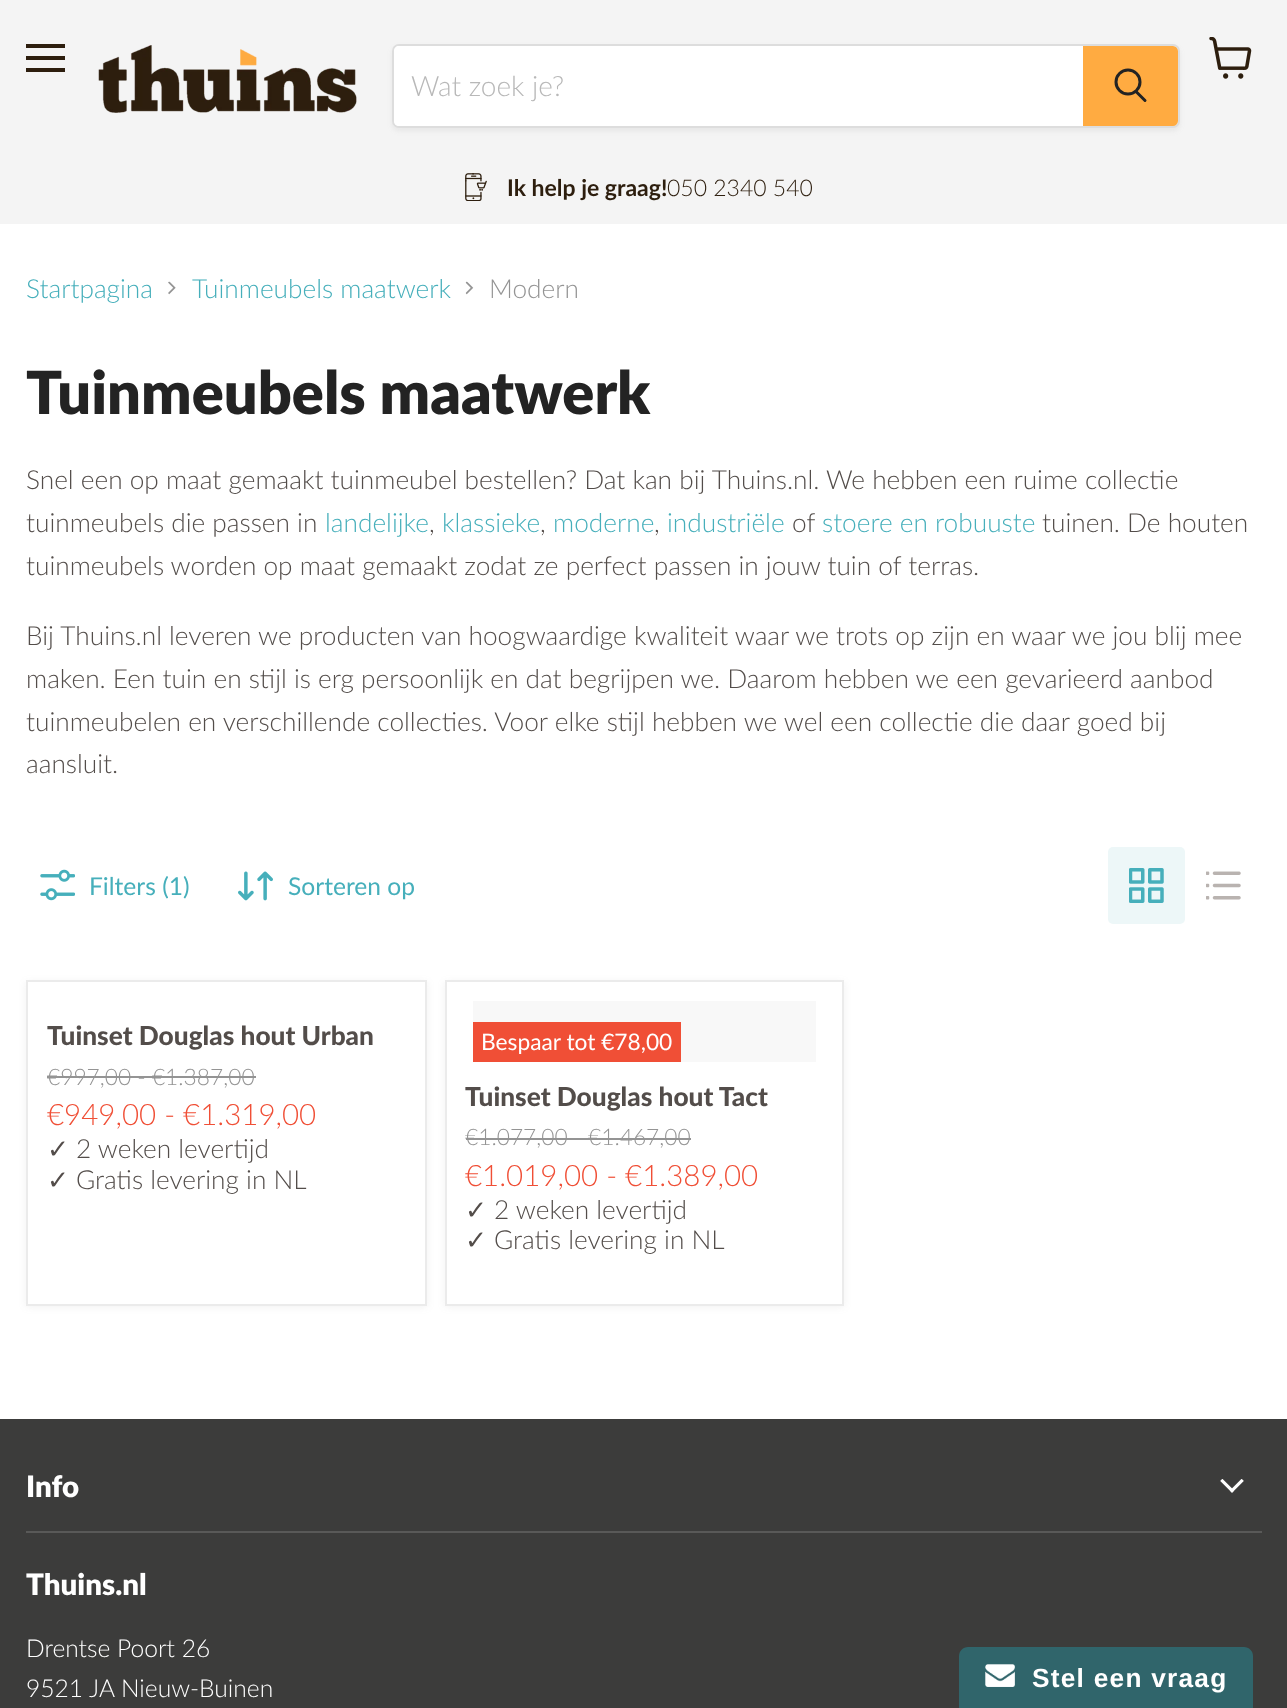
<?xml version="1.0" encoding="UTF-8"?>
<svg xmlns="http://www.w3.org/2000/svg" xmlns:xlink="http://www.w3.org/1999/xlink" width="1287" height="1708">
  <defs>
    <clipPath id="clip1"><path d="M 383 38 h 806 v 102 h -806 z m 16 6 h 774 c 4 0 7 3 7 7 v 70 c 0 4 -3 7 -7 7 h -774 c -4 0 -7 -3 -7 -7 v -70 c 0 -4 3 -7 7 -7 z" clip-rule="evenodd" /></clipPath>
  </defs>
  <rect width="100%" height="100%" fill="#ffffff" />
  <rect width="1287" height="224" fill="#f4f4f4" />
  <rect x="26" y="44" width="39" height="4" fill="#2d1e0e" />
  <rect x="26" y="56" width="39" height="4" fill="#2d1e0e" />
  <rect x="26" y="68" width="39" height="4" fill="#2d1e0e" />
  <image x="1209" y="37" width="43" height="42" xlink:href="image1.png" />
  <image x="98" y="45" width="259" height="68" xlink:href="image2.png" />
  <g clip-path="url(#clip1)">
    <rect x="392" y="47" width="788" height="84" rx="7" fill="#808080" fill-opacity="0.11" filter="blur(2.5px)" />
  </g>
  <rect x="393" y="45" width="786" height="82" rx="6" fill="none" stroke="#808080" stroke-opacity="0.2" stroke-width="2" />
  <path d="M 399 46 h 684 v 80 h -684 c -3 0 -5 -2 -5 -5 v -70 c 0 -3 2 -5 5 -5 z" fill="#ffffff" />
  <path d="M 1084 47 h 89 c 2 0 4 2 4 4 v 70 c 0 2 -2 4 -4 4 h -89 z" fill="#ffab41" stroke="#ffab41" stroke-width="2" />
  <path d="M 1145 100.5 l -8.5 -8.5" fill="none" stroke="#232323" stroke-width="3" stroke-linecap="round" />
  <circle cx="1128" cy="82" r="12" fill="none" stroke="#232323" stroke-width="3" />
  <image x="465" y="173" width="22" height="28" xlink:href="image3.png" />
  <image x="168" y="281" width="8" height="14" xlink:href="image4.png" />
  <image x="465" y="281" width="9" height="14" xlink:href="image5.png" />
  <image x="40" y="869" width="35" height="32" xlink:href="image6.png" />
  <image x="238" y="871" width="35" height="30" xlink:href="image7.png" />
  <rect x="1108" y="847" width="77" height="77" rx="5" fill="#edf7f8" />
  <image x="1129" y="868" width="35" height="35" xlink:href="image8.png" />
  <image x="1206" y="871" width="35" height="29" xlink:href="image9.png" />
  <rect x="26" y="982" width="401" height="325" fill="#808080" fill-opacity="0.11" filter="blur(3.5px)" />
  <rect x="27" y="981" width="399" height="324" fill="#ffffff" stroke="#ebebeb" stroke-width="2" />
  <rect x="47" y="1076" width="209" height="2" fill="#949494" />
  <rect x="445" y="982" width="399" height="325" fill="#808080" fill-opacity="0.11" filter="blur(3.5px)" />
  <rect x="446" y="981" width="397" height="324" fill="#ffffff" stroke="#ebebeb" stroke-width="2" />
  <rect x="473" y="1001" width="343" height="61" fill="#f8f8f8" />
  <rect x="473" y="1022" width="208" height="40" fill="#f04f36" />
  <rect x="466" y="1138" width="122" height="2" fill="#949494" />
  <rect x="588" y="1138" width="103" height="2" fill="#949494" />
  <rect y="1419" width="1287" height="289" fill="#3c3c3b" />
  <rect x="26" y="1531" width="1236" height="2" fill="#595958" />
  <image x="1220" y="1479" width="24" height="14" xlink:href="image10.png" />
  <path d="M 968 1647 h 276 c 5 0 9 4 9 9 v 52 h -294 v -52 c 0 -5 4 -9 9 -9 z" fill="#30656b" />
  <image x="985" y="1664" width="30" height="23" xlink:href="image11.png" />
  <text x="411" y="96" style="font-family: Lato; font-size: 28px; font-weight: 300; fill: #b8b8b8">Wat zoek je?</text>
  <text x="507" y="196" style="font-family: Lato; font-size: 23px; font-weight: bold; fill: #2d1e0e">Ik help je graag!</text>
  <text x="667" y="196" style="font-family: Lato; font-size: 23px; font-weight: 300; fill: #2d1e0e">050 2340 540</text>
  <text x="26" y="298" style="font-family: Lato; font-size: 26.25px; font-weight: 300; fill: #46afbb">Startpagina</text>
  <text x="192" y="298" style="font-family: Lato; font-size: 26.25px; font-weight: 300; fill: #46afbb">Tuinmeubels maatwerk</text>
  <text x="489" y="298" style="font-family: Lato; font-size: 26.25px; font-weight: 300; fill: #949494">Modern</text>
  <text x="26" y="414" style="font-family: Lato; font-size: 59.5px; font-weight: 800; fill: #232323">Tuinmeubels maatwerk</text>
  <text x="26" y="489" style="font-family: Lato; font-size: 26.25px; font-weight: 300; fill: #534d4a">Snel een op maat gemaakt tuinmeubel bestellen? Dat kan bij Thuins.nl. We hebben een ruime collectie</text>
  <text x="26" y="532" style="font-family: Lato; font-size: 26.25px; font-weight: 300; fill: #534d4a">tuinmeubels die passen in</text>
  <text x="325" y="532" style="font-family: Lato; font-size: 26.25px; font-weight: 300; fill: #46afbb">landelijke</text>
  <text x="429" y="532" style="font-family: Lato; font-size: 26.25px; font-weight: 300; fill: #534d4a">,</text>
  <text x="442" y="532" style="font-family: Lato; font-size: 26.25px; font-weight: 300; fill: #46afbb">klassieke</text>
  <text x="540" y="532" style="font-family: Lato; font-size: 26.25px; font-weight: 300; fill: #534d4a">,</text>
  <text x="553" y="532" style="font-family: Lato; font-size: 26.25px; font-weight: 300; fill: #46afbb">moderne</text>
  <text x="654" y="532" style="font-family: Lato; font-size: 26.25px; font-weight: 300; fill: #534d4a">,</text>
  <text x="667" y="532" style="font-family: Lato; font-size: 26.25px; font-weight: 300; fill: #46afbb">industriële</text>
  <text x="792" y="532" style="font-family: Lato; font-size: 26.25px; font-weight: 300; fill: #534d4a">of</text>
  <text x="822" y="532" style="font-family: Lato; font-size: 26.25px; font-weight: 300; fill: #46afbb">stoere en robuuste</text>
  <text x="1042" y="532" style="font-family: Lato; font-size: 26.25px; font-weight: 300; fill: #534d4a">tuinen. De houten</text>
  <text x="26" y="575" style="font-family: Lato; font-size: 26.25px; font-weight: 300; fill: #534d4a">tuinmeubels worden op maat gemaakt zodat ze perfect passen in jouw tuin of terras.</text>
  <text x="26" y="645" style="font-family: Lato; font-size: 26.25px; font-weight: 300; fill: #534d4a">Bij Thuins.nl leveren we producten van hoogwaardige kwaliteit waar we trots op zijn en waar we jou blij mee</text>
  <text x="26" y="688" style="font-family: Lato; font-size: 26.25px; font-weight: 300; fill: #534d4a">maken. Een tuin en stijl is erg persoonlijk en dat begrijpen we. Daarom hebben we een gevarieerd aanbod</text>
  <text x="26" y="731" style="font-family: Lato; font-size: 26.25px; font-weight: 300; fill: #534d4a">tuinmeubelen en verschillende collecties. Voor elke stijl hebben we wel een collectie die daar goed bij</text>
  <text x="26" y="773" style="font-family: Lato; font-size: 26.25px; font-weight: 300; fill: #534d4a">aansluit.</text>
  <text x="89" y="895" style="font-family: Lato; font-size: 24.6px; fill: #46afbb">Filters (1)</text>
  <text x="288" y="895" style="font-family: Lato; font-size: 24.6px; fill: #46afbb">Sorteren op</text>
  <text x="47" y="1045" style="font-family: Lato; font-size: 26.25px; font-weight: 900; fill: #534d4a">Tuinset Douglas hout Urban</text>
  <text x="47" y="1085" style="font-family: Lato; font-size: 22.75px; font-weight: 300; fill: #949494">€997,00 - €1.387,00</text>
  <text x="47" y="1125" style="font-family: Lato; font-size: 29.5px; font-weight: 300; fill: #f04f36">€949,00 - €1.319,00</text>
  <text x="47" y="1158" style="font-family: DejaVu Sans; font-size: 26.25px; fill: #534d4a">✓</text>
  <text x="76" y="1158" style="font-family: Lato; font-size: 26.25px; font-weight: 300; fill: #534d4a">2 weken levertijd</text>
  <text x="47" y="1189" style="font-family: DejaVu Sans; font-size: 26.25px; fill: #534d4a">✓</text>
  <text x="76" y="1189" style="font-family: Lato; font-size: 26.25px; font-weight: 300; fill: #534d4a">Gratis levering in NL</text>
  <text x="481" y="1050" style="font-family: Lato; font-size: 22.75px; fill: #ffffff">Bespaar tot €78,00</text>
  <text x="465" y="1106" style="font-family: Lato; font-size: 26.25px; font-weight: 900; fill: #534d4a">Tuinset Douglas hout Tact</text>
  <text x="465" y="1145" style="font-family: Lato; font-size: 22.75px; font-weight: 300; fill: #949494">€1.077,00</text>
  <text x="588" y="1145" style="font-family: Lato; font-size: 22.75px; font-weight: 300; fill: #949494">€1.467,00</text>
  <text x="465" y="1186" style="font-family: Lato; font-size: 29.5px; font-weight: 300; fill: #f04f36">€1.019,00 - €1.389,00</text>
  <text x="465" y="1219" style="font-family: DejaVu Sans; font-size: 26.25px; fill: #534d4a">✓</text>
  <text x="494" y="1219" style="font-family: Lato; font-size: 26.25px; font-weight: 300; fill: #534d4a">2 weken levertijd</text>
  <text x="465" y="1249" style="font-family: DejaVu Sans; font-size: 26.25px; fill: #534d4a">✓</text>
  <text x="494" y="1249" style="font-family: Lato; font-size: 26.25px; font-weight: 300; fill: #534d4a">Gratis levering in NL</text>
  <text x="26" y="1497" style="font-family: Lato; font-size: 29.5px; font-weight: 800; fill: #ffffff">Info</text>
  <text x="26" y="1595" style="font-family: Lato; font-size: 29.5px; font-weight: 800; fill: #ffffff">Thuins.nl</text>
  <text x="26" y="1657" style="font-family: Lato; font-size: 24.6px; font-weight: 300; fill: #ffffff">Drentse Poort 26</text>
  <text x="26" y="1697" style="font-family: Lato; font-size: 24.6px; font-weight: 300; fill: #ffffff">9521 JA Nieuw-Buinen</text>
  <text x="1032" y="1687" style="font-family: Liberation Sans; font-size: 26.25px; font-weight: bold; letter-spacing: 1.25px; fill: #ffffff">Stel een vraag</text>
</svg>
